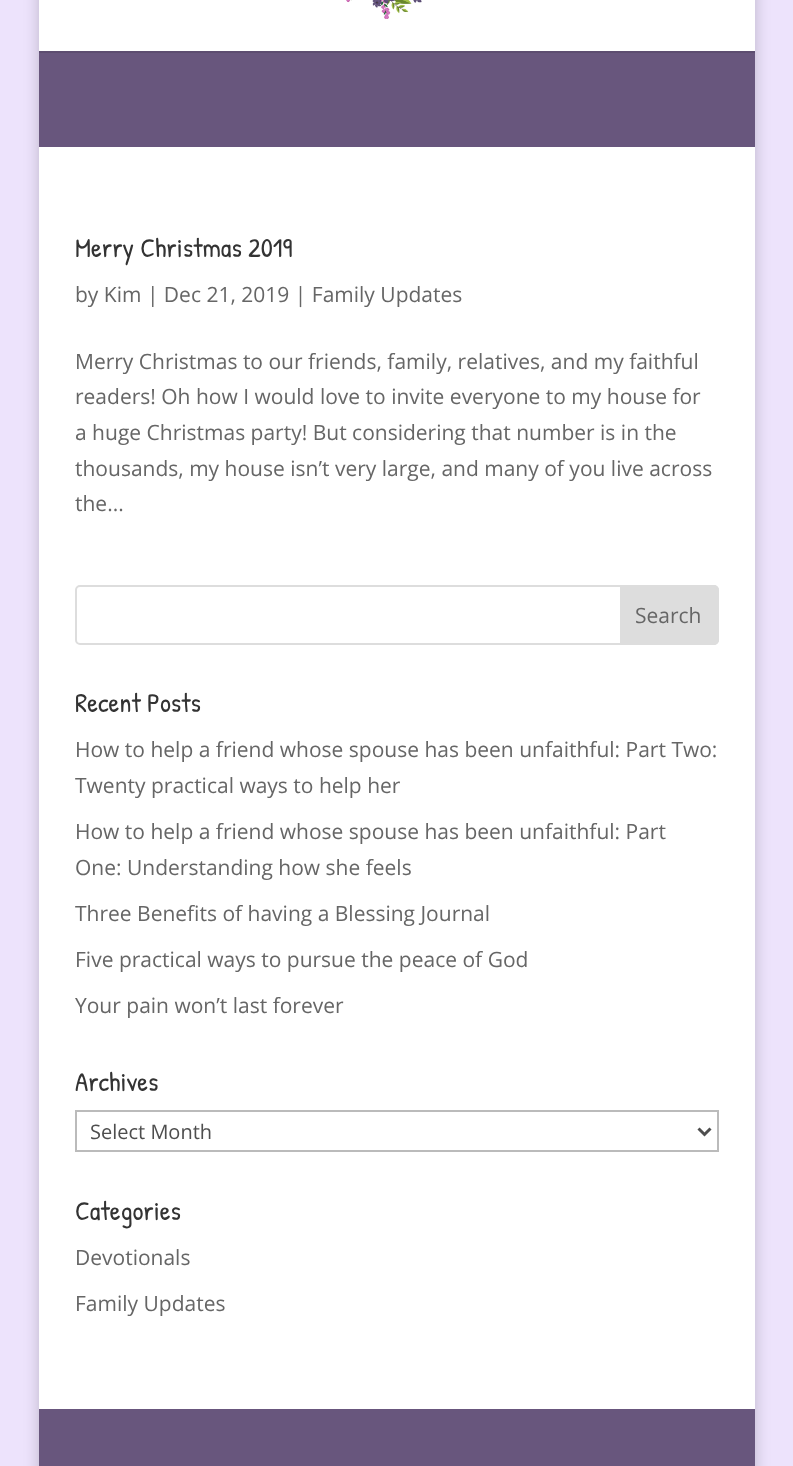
<?xml version="1.0" encoding="UTF-8"?>
<svg xmlns="http://www.w3.org/2000/svg" xmlns:xlink="http://www.w3.org/1999/xlink" width="793" height="1466">
  <rect width="100%" height="100%" fill="#ede3fc" />
  <rect x="39" y="-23" width="716" height="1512" fill="#000000" fill-opacity="0.2" filter="blur(7.5px)" />
  <rect x="39" y="51" width="716" height="96" fill="#68567d" />
  <path d="M 39 51 v 2 h 716 v -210 h -1 v 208 z" fill="#000000" fill-opacity="0.1" />
  <rect x="39" width="716" height="51" fill="#ffffff" />
  <image x="346" y="0" width="76" height="19" xlink:href="image1.png" />
  <rect x="39" y="147" width="716" height="1262" fill="#ffffff" />
  <rect x="76" y="586" width="642" height="58" rx="4" fill="none" stroke="#dddddd" stroke-width="2" />
  <path d="M 621 586 h 93 c 2 0 4 2 4 4 v 50 c 0 2 -2 4 -4 4 h -93 z" fill="#dddddd" stroke="#dddddd" stroke-width="2" />
  <rect x="76" y="1111" width="642" height="40" fill="none" stroke="#bbbbbb" stroke-width="2" />
  <path d="M 698.5 1128.5 l 6 6 l 6 -6" fill="none" stroke="#4e4e4e" stroke-width="3" />
  <rect x="39" y="1409" width="716" height="57" fill="#68567d" />
  <text x="75" y="257" style="font-family: Patrick Hand; font-size: 27px; fill: #333333">Merry Christmas 2019</text>
  <text x="75" y="302" style="font-family: Open Sans; font-size: 21px; fill: #666666">by Kim | Dec 21, 2019 | Family Updates</text>
  <text x="75" y="369" style="font-family: Open Sans; font-size: 21px; fill: #666666">Merry Christmas to our friends, family, relatives, and my faithful</text>
  <text x="75" y="404" style="font-family: Open Sans; font-size: 21px; fill: #666666">readers! Oh how I would love to invite everyone to my house for</text>
  <text x="75" y="440" style="font-family: Open Sans; font-size: 21px; fill: #666666">a huge Christmas party! But considering that number is in the</text>
  <text x="75" y="476" style="font-family: Open Sans; font-size: 21px; fill: #666666">thousands, my house isn’t very large, and many of you live across</text>
  <text x="75" y="511" style="font-family: Open Sans; font-size: 21px; fill: #666666">the...</text>
  <text x="635" y="623" style="font-family: Open Sans; font-size: 21px; fill: #666666">Search</text>
  <text x="75" y="712" style="font-family: Patrick Hand; font-size: 27px; fill: #333333">Recent Posts</text>
  <text x="75" y="757" style="font-family: Open Sans; font-size: 21px; fill: #666666">How to help a friend whose spouse has been unfaithful: Part Two:</text>
  <text x="75" y="793" style="font-family: Open Sans; font-size: 21px; fill: #666666">Twenty practical ways to help her</text>
  <text x="75" y="839" style="font-family: Open Sans; font-size: 21px; fill: #666666">How to help a friend whose spouse has been unfaithful: Part</text>
  <text x="75" y="875" style="font-family: Open Sans; font-size: 21px; fill: #666666">One: Understanding how she feels</text>
  <text x="75" y="921" style="font-family: Open Sans; font-size: 21px; fill: #666666">Three Benefits of having a Blessing Journal</text>
  <text x="75" y="967" style="font-family: Open Sans; font-size: 21px; fill: #666666">Five practical ways to pursue the peace of God</text>
  <text x="75" y="1013" style="font-family: Open Sans; font-size: 21px; fill: #666666">Your pain won’t last forever</text>
  <text x="75" y="1091" style="font-family: Patrick Hand; font-size: 27px; fill: #333333">Archives</text>
  <text x="90" y="1139" style="font-family: Open Sans; font-size: 20px; fill: #4e4e4e">Select Month</text>
  <text x="75" y="1220" style="font-family: Patrick Hand; font-size: 27px; fill: #333333">Categories</text>
  <text x="75" y="1265" style="font-family: Open Sans; font-size: 21px; fill: #666666">Devotionals</text>
  <text x="75" y="1311" style="font-family: Open Sans; font-size: 21px; fill: #666666">Family Updates</text>
</svg>
